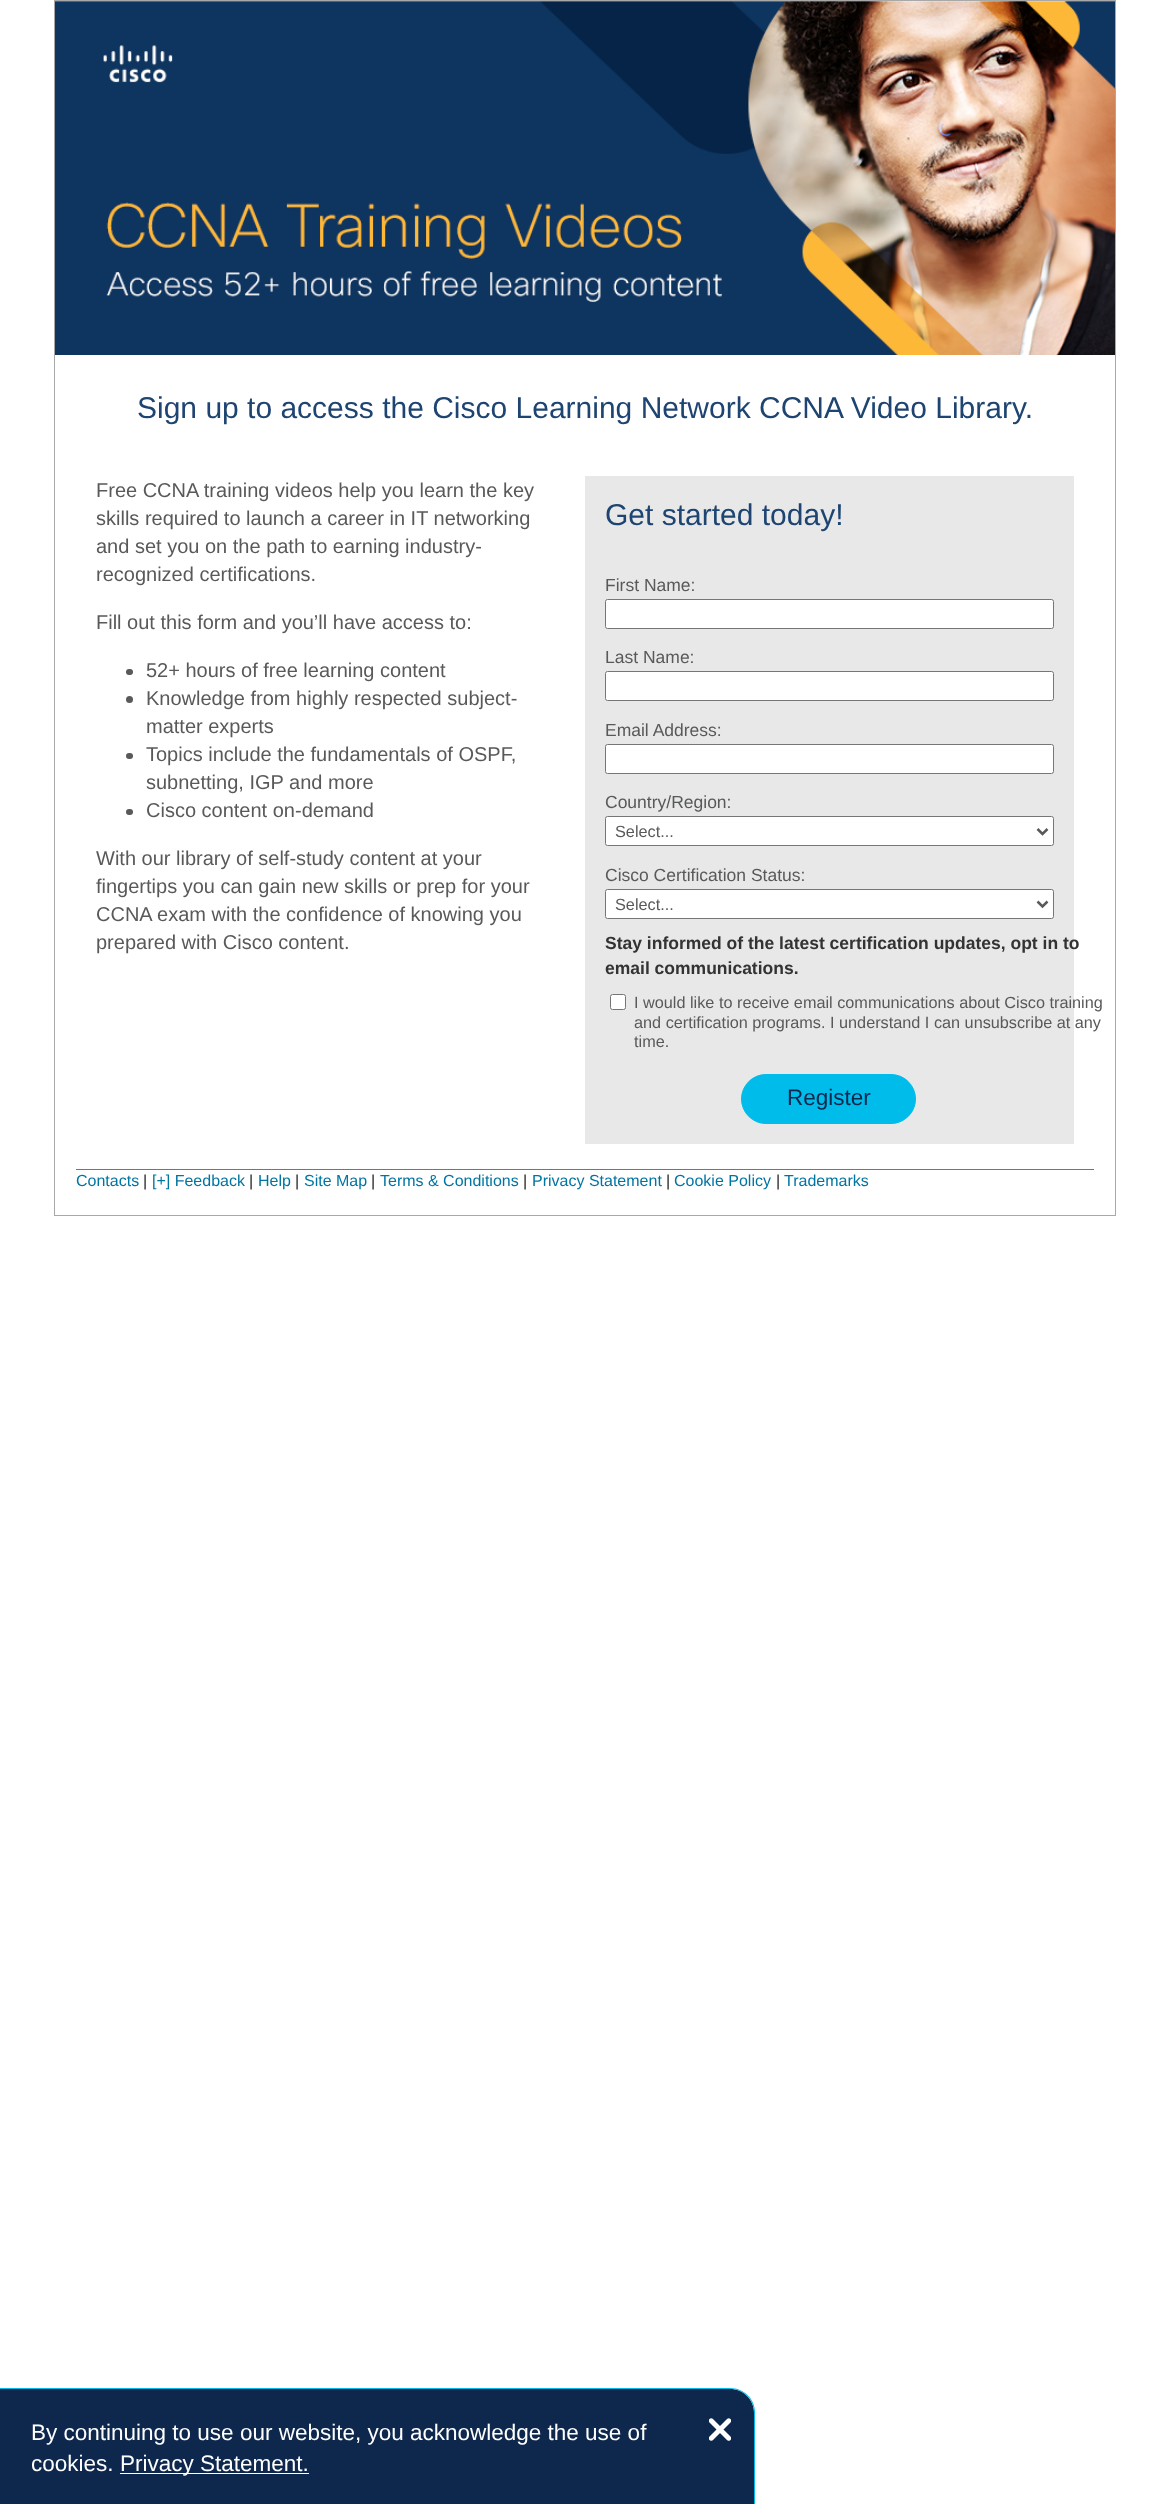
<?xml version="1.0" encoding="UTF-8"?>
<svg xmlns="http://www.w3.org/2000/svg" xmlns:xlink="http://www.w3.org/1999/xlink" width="1169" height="2504">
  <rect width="100%" height="100%" fill="#ffffff" />
  <rect x="54.5" y="0.5" width="1061" height="1215" fill="none" stroke="#a8a8a8" />
  <image x="55" y="1" width="1060" height="354" xlink:href="image1.png" />
  <rect x="126" y="669" width="7" height="6" rx="3" fill="#58595b" />
  <circle cx="129.5" cy="699.5" r="3.5" fill="#58595b" />
  <rect x="126" y="753" width="7" height="6" rx="3" fill="#58595b" />
  <rect x="126" y="809" width="7" height="6" rx="3" fill="#58595b" />
  <rect x="585" y="476" width="489" height="668" fill="#e8e8e8" />
  <rect x="605.5" y="599.5" width="448" height="29" rx="2" fill="#ffffff" stroke="#767676" />
  <rect x="605.5" y="671.5" width="448" height="29" rx="2" fill="#ffffff" stroke="#767676" />
  <rect x="605.5" y="744.5" width="448" height="29" rx="2" fill="#ffffff" stroke="#767676" />
  <rect x="605.5" y="816.5" width="448" height="29" rx="2" fill="#ffffff" stroke="#767676" />
  <path d="M 1037.5 829 l 5 5 l 5 -5" fill="none" stroke="#58595b" stroke-width="2.5" />
  <rect x="605.5" y="889.5" width="448" height="29" rx="2" fill="#ffffff" stroke="#767676" />
  <path d="M 1037.5 901.5 l 5 5 l 5 -5" fill="none" stroke="#58595b" stroke-width="2.5" />
  <rect x="610.5" y="994.5" width="15" height="15" rx="2" fill="#ffffff" stroke="#767676" />
  <rect x="741.5" y="1074.5" width="174" height="49" rx="24.5" fill="#00bceb" stroke="#00bceb" />
  <rect x="76" y="1169" width="1018" height="1" fill="#757575" />
  <path d="M 0 2389 h 730 c 13.5 0 24 10.5 24 24 v 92 h -754 z" fill="#0d274d" />
  <path d="M 0 2388 h 730 c 14 0 25 11 25 24 v 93 h -755 z m 0 1 h 730 c 13 0 24 10 24 23 v 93 h -754 z" fill="#00bceb" fill-rule="evenodd" />
  <rect x="120" y="2473" width="189" height="1" fill="#ffffff" />
  <image x="709" y="2418" width="22" height="23" xlink:href="image2.png" />
  <text x="137" y="418" style="font-family: Liberation Sans; font-size: 30px; fill: #1e4471">Sign up to access the Cisco Learning Network CCNA Video Library.</text>
  <text x="96" y="497" style="font-family: Liberation Sans; font-size: 20px; fill: #58595b">Free CCNA training videos help you learn the key</text>
  <text x="96" y="525" style="font-family: Liberation Sans; font-size: 20px; fill: #58595b">skills required to launch a career in IT networking</text>
  <text x="96" y="553" style="font-family: Liberation Sans; font-size: 20px; fill: #58595b">and set you on the path to earning industry-</text>
  <text x="96" y="581" style="font-family: Liberation Sans; font-size: 20px; fill: #58595b">recognized certifications.</text>
  <text x="96" y="629" style="font-family: Liberation Sans; font-size: 20px; fill: #58595b">Fill out this form and you’ll have access to:</text>
  <text x="146" y="677" style="font-family: Liberation Sans; font-size: 20px; fill: #58595b">52+ hours of free learning content</text>
  <text x="146" y="705" style="font-family: Liberation Sans; font-size: 20px; fill: #58595b">Knowledge from highly respected subject-</text>
  <text x="146" y="733" style="font-family: Liberation Sans; font-size: 20px; fill: #58595b">matter experts</text>
  <text x="146" y="761" style="font-family: Liberation Sans; font-size: 20px; fill: #58595b">Topics include the fundamentals of OSPF,</text>
  <text x="146" y="789" style="font-family: Liberation Sans; font-size: 20px; fill: #58595b">subnetting, IGP and more</text>
  <text x="146" y="817" style="font-family: Liberation Sans; font-size: 20px; fill: #58595b">Cisco content on-demand</text>
  <text x="96" y="865" style="font-family: Liberation Sans; font-size: 20px; fill: #58595b">With our library of self-study content at your</text>
  <text x="96" y="893" style="font-family: Liberation Sans; font-size: 20px; fill: #58595b">fingertips you can gain new skills or prep for your</text>
  <text x="96" y="921" style="font-family: Liberation Sans; font-size: 20px; fill: #58595b">CCNA exam with the confidence of knowing you</text>
  <text x="96" y="949" style="font-family: Liberation Sans; font-size: 20px; fill: #58595b">prepared with Cisco content.</text>
  <text x="605" y="525" style="font-family: Liberation Sans; font-size: 30px; fill: #1e4471">Get started today!</text>
  <text x="605" y="591" style="font-family: Liberation Sans; font-size: 17.5px; fill: #58595b">First Name:</text>
  <text x="605" y="663" style="font-family: Liberation Sans; font-size: 17.5px; fill: #58595b">Last Name:</text>
  <text x="605" y="736" style="font-family: Liberation Sans; font-size: 17.5px; fill: #58595b">Email Address:</text>
  <text x="605" y="808" style="font-family: Liberation Sans; font-size: 17.5px; fill: #58595b">Country/Region:</text>
  <text x="615" y="837" style="font-family: Liberation Sans; font-size: 16.25px; fill: #58595b">Select...</text>
  <text x="605" y="881" style="font-family: Liberation Sans; font-size: 17.5px; fill: #58595b">Cisco Certification Status:</text>
  <text x="615" y="910" style="font-family: Liberation Sans; font-size: 16.25px; fill: #58595b">Select...</text>
  <text x="605" y="949" style="font-family: Liberation Sans; font-size: 17.5px; font-weight: bold; fill: #333333">Stay informed of the latest certification updates, opt in to</text>
  <text x="605" y="974" style="font-family: Liberation Sans; font-size: 17.5px; font-weight: bold; fill: #333333">email communications.</text>
  <text x="634" y="1008" style="font-family: Liberation Sans; font-size: 16.25px; fill: #58595b">I would like to receive email communications about Cisco training</text>
  <text x="634" y="1028" style="font-family: Liberation Sans; font-size: 16.25px; fill: #58595b">and certification programs. I understand I can unsubscribe at any</text>
  <text x="634" y="1047" style="font-family: Liberation Sans; font-size: 16.25px; fill: #58595b">time.</text>
  <text x="787" y="1105" style="font-family: Liberation Sans; font-size: 22.5px; fill: #0d274d">Register</text>
  <text x="76" y="1186" style="font-family: Liberation Sans; font-size: 16px; fill: #0175a2">Contacts</text>
  <text x="143" y="1186" style="font-family: Liberation Sans; font-size: 16px; fill: #222222">|</text>
  <text x="152" y="1186" style="font-family: Liberation Sans; font-size: 16px; fill: #0175a2">[+] Feedback</text>
  <text x="249" y="1186" style="font-family: Liberation Sans; font-size: 16px; fill: #222222">|</text>
  <text x="258" y="1186" style="font-family: Liberation Sans; font-size: 16px; fill: #0175a2">Help</text>
  <text x="295" y="1186" style="font-family: Liberation Sans; font-size: 16px; fill: #222222">|</text>
  <text x="304" y="1186" style="font-family: Liberation Sans; font-size: 16px; fill: #0175a2">Site Map</text>
  <text x="371" y="1186" style="font-family: Liberation Sans; font-size: 16px; fill: #222222">|</text>
  <text x="380" y="1186" style="font-family: Liberation Sans; font-size: 16px; fill: #0175a2">Terms &amp; Conditions</text>
  <text x="523" y="1186" style="font-family: Liberation Sans; font-size: 16px; fill: #222222">|</text>
  <text x="532" y="1186" style="font-family: Liberation Sans; font-size: 16px; fill: #0175a2">Privacy Statement</text>
  <text x="666" y="1186" style="font-family: Liberation Sans; font-size: 16px; fill: #222222">|</text>
  <text x="674" y="1186" style="font-family: Liberation Sans; font-size: 16px; fill: #0175a2">Cookie Policy</text>
  <text x="776" y="1186" style="font-family: Liberation Sans; font-size: 16px; fill: #222222">|</text>
  <text x="784" y="1186" style="font-family: Liberation Sans; font-size: 16px; fill: #0175a2">Trademarks</text>
  <text x="31" y="2440" style="font-family: Liberation Sans; font-size: 22.5px; fill: #ffffff">By continuing to use our website, you acknowledge the use of</text>
  <text x="31" y="2471" style="font-family: Liberation Sans; font-size: 22.5px; fill: #ffffff">cookies.</text>
  <text x="120" y="2471" style="font-family: Liberation Sans; font-size: 22.5px; fill: #ffffff">Privacy Statement.</text>
</svg>
